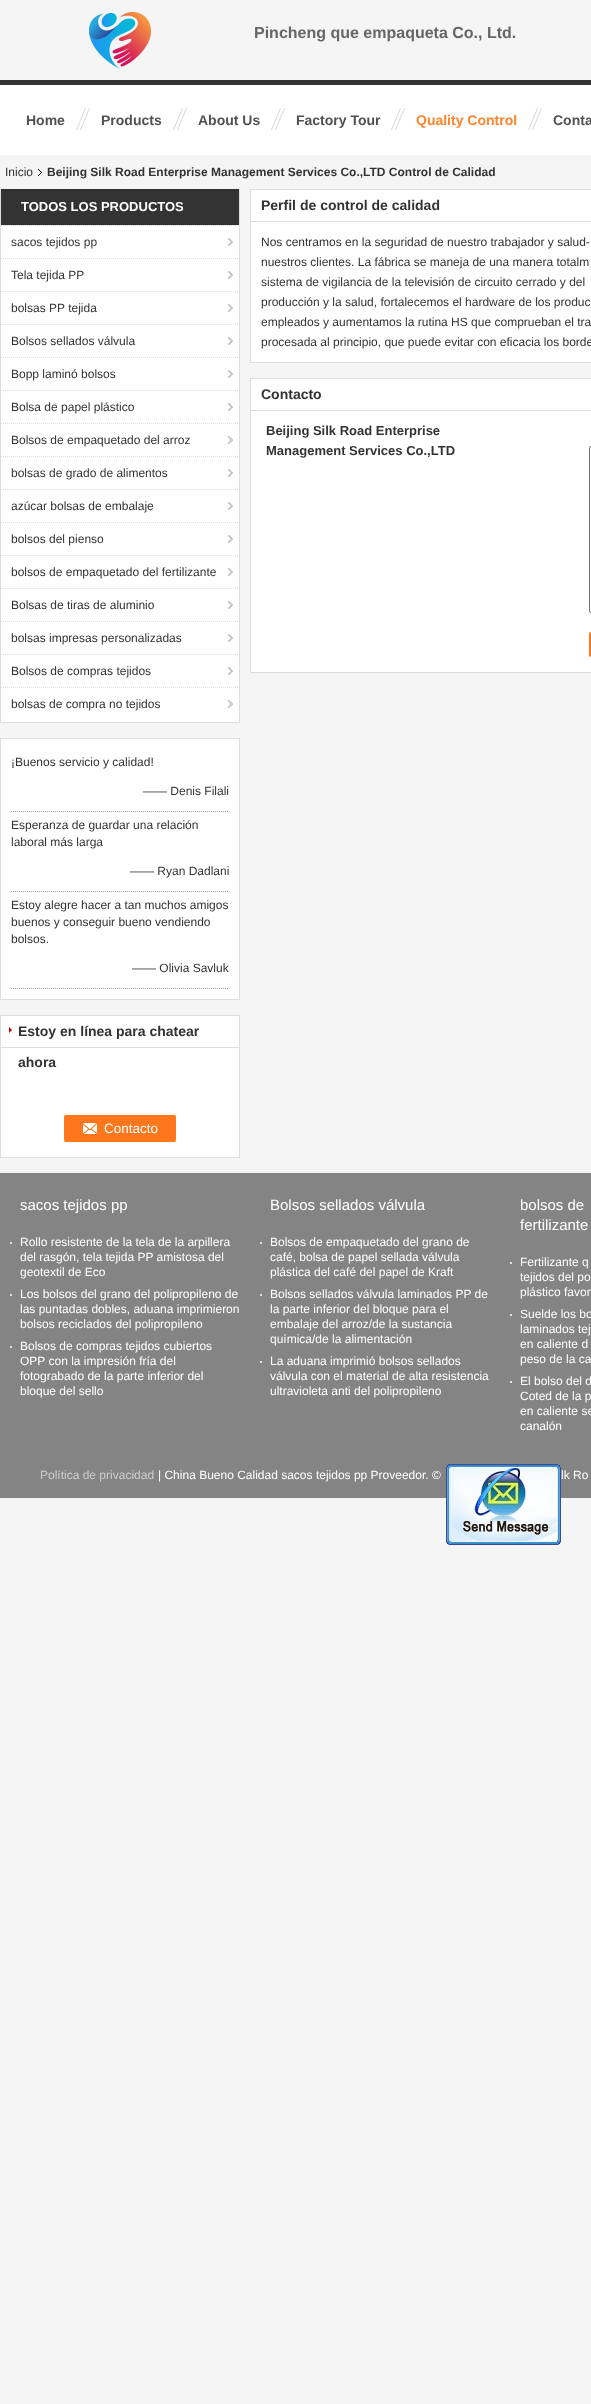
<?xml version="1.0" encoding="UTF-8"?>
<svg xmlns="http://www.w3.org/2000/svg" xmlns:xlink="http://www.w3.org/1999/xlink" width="591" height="2404">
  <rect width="100%" height="100%" fill="#f5f5f5" />
  <image x="89" y="12" width="62" height="57" xlink:href="image1.png" />
  <rect y="85" width="591" height="70" fill="#ffffff" />
  <rect y="80" width="591" height="5" fill="#333333" />
  <image x="76" y="108" width="14" height="22" xlink:href="image2.png" />
  <image x="173" y="108" width="14" height="22" xlink:href="image2.png" />
  <image x="271" y="108" width="14" height="22" xlink:href="image2.png" />
  <image x="391" y="108" width="14" height="22" xlink:href="image2.png" />
  <image x="528" y="108" width="14" height="22" xlink:href="image2.png" />
  <image x="38" y="169" width="4" height="7" xlink:href="image3.png" />
  <rect x="1" y="225" width="238" height="497" fill="#ffffff" />
  <rect x="239" y="189" width="1" height="534" fill="#dedede" />
  <rect y="722" width="240" height="1" fill="#dedede" />
  <rect y="189" width="1" height="534" fill="#dedede" />
  <rect x="1" y="189" width="238" height="35" fill="#333333" />
  <rect x="1" y="224" width="238" height="1" fill="#313131" />
  <image x="228" y="238" width="5" height="8" xlink:href="image4.png" />
  <path d="M 1 225.5 h 238" fill="none" stroke="#dedede" stroke-dasharray="1 1" />
  <image x="228" y="271" width="5" height="8" xlink:href="image4.png" />
  <path d="M 1 258.5 h 238" fill="none" stroke="#dedede" stroke-dasharray="1 1" />
  <image x="228" y="304" width="5" height="8" xlink:href="image4.png" />
  <path d="M 1 291.5 h 238" fill="none" stroke="#dedede" stroke-dasharray="1 1" />
  <image x="228" y="337" width="5" height="8" xlink:href="image4.png" />
  <path d="M 1 324.5 h 238" fill="none" stroke="#dedede" stroke-dasharray="1 1" />
  <image x="228" y="370" width="5" height="8" xlink:href="image4.png" />
  <path d="M 1 357.5 h 238" fill="none" stroke="#dedede" stroke-dasharray="1 1" />
  <image x="228" y="403" width="5" height="8" xlink:href="image4.png" />
  <path d="M 1 390.5 h 238" fill="none" stroke="#dedede" stroke-dasharray="1 1" />
  <image x="228" y="436" width="5" height="8" xlink:href="image4.png" />
  <path d="M 1 423.5 h 238" fill="none" stroke="#dedede" stroke-dasharray="1 1" />
  <image x="228" y="469" width="5" height="8" xlink:href="image4.png" />
  <path d="M 1 456.5 h 238" fill="none" stroke="#dedede" stroke-dasharray="1 1" />
  <image x="228" y="502" width="5" height="8" xlink:href="image4.png" />
  <path d="M 1 489.5 h 238" fill="none" stroke="#dedede" stroke-dasharray="1 1" />
  <image x="228" y="535" width="5" height="8" xlink:href="image4.png" />
  <path d="M 1 522.5 h 238" fill="none" stroke="#dedede" stroke-dasharray="1 1" />
  <image x="228" y="568" width="5" height="8" xlink:href="image4.png" />
  <path d="M 1 555.5 h 238" fill="none" stroke="#dedede" stroke-dasharray="1 1" />
  <image x="228" y="601" width="5" height="8" xlink:href="image4.png" />
  <path d="M 1 588.5 h 238" fill="none" stroke="#dedede" stroke-dasharray="1 1" />
  <image x="228" y="634" width="5" height="8" xlink:href="image4.png" />
  <path d="M 1 621.5 h 238" fill="none" stroke="#dedede" stroke-dasharray="1 1" />
  <image x="228" y="667" width="5" height="8" xlink:href="image4.png" />
  <path d="M 1 654.5 h 238" fill="none" stroke="#dedede" stroke-dasharray="1 1" />
  <image x="228" y="700" width="5" height="8" xlink:href="image4.png" />
  <path d="M 1 687.5 h 238" fill="none" stroke="#dedede" stroke-dasharray="1 1" />
  <rect x="0.5" y="738.5" width="239" height="261" fill="#ffffff" stroke="#dedede" />
  <path d="M 11 811.5 h 218" fill="none" stroke="#a2a2a2" stroke-dasharray="1 1" />
  <path d="M 11 891.5 h 218" fill="none" stroke="#a2a2a2" stroke-dasharray="1 1" />
  <path d="M 11 988.5 h 218" fill="none" stroke="#a2a2a2" stroke-dasharray="1 1" />
  <rect x="0.5" y="1015.5" width="239" height="142" fill="#ffffff" stroke="#dedede" />
  <rect x="1" y="1047" width="238" height="1" fill="#dedede" />
  <path d="M 9 1033 v -6 l 3 3 z" fill="#cc0000" />
  <rect x="64" y="1115" width="112" height="27" rx="2" fill="#ff771c" />
  <image x="83" y="1123" width="14" height="11" xlink:href="image5.png" />
  <rect x="251" y="190" width="340" height="172" fill="#ffffff" />
  <rect x="250.5" y="189.5" width="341" height="32" fill="none" stroke="#dddddd" />
  <rect x="250" y="362" width="341" height="1" fill="#dddddd" />
  <rect x="250" y="222" width="1" height="141" fill="#dddddd" />
  <rect x="251" y="379" width="340" height="293" fill="#ffffff" />
  <rect x="250.5" y="378.5" width="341" height="32" fill="none" stroke="#dddddd" />
  <rect x="250" y="672" width="341" height="1" fill="#dddddd" />
  <rect x="250" y="411" width="1" height="262" fill="#dddddd" />
  <rect x="589.5" y="446.5" width="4" height="166" rx="1.5" fill="none" stroke="#767676" />
  <rect x="589" y="632" width="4" height="25" rx="2" fill="#ff771c" />
  <rect y="1173" width="591" height="325" fill="#848484" />
  <circle cx="11" cy="1243" r="1" fill="#ffffff" />
  <circle cx="11" cy="1295" r="1" fill="#ffffff" />
  <circle cx="11" cy="1347" r="1" fill="#ffffff" />
  <circle cx="261" cy="1243" r="1" fill="#ffffff" />
  <circle cx="261" cy="1295" r="1" fill="#ffffff" />
  <circle cx="261" cy="1362" r="1" fill="#ffffff" />
  <circle cx="511" cy="1263" r="1" fill="#ffffff" />
  <circle cx="511" cy="1315" r="1" fill="#ffffff" />
  <circle cx="511" cy="1382" r="1" fill="#ffffff" />
  <image x="446" y="1464" width="115" height="81" xlink:href="image6.png" />
  <text x="254" y="38" style="font-family: Liberation Sans; font-size: 16px; font-weight: bold; fill: #666666">Pincheng que empaqueta Co., Ltd.</text>
  <text x="26" y="125" style="font-family: Liberation Sans; font-size: 14px; font-weight: bold; fill: #515151">Home</text>
  <text x="101" y="125" style="font-family: Liberation Sans; font-size: 14px; font-weight: bold; fill: #515151">Products</text>
  <text x="198" y="125" style="font-family: Liberation Sans; font-size: 14px; font-weight: bold; fill: #515151">About Us</text>
  <text x="296" y="125" style="font-family: Liberation Sans; font-size: 14px; font-weight: bold; fill: #515151">Factory Tour</text>
  <text x="416" y="125" style="font-family: Liberation Sans; font-size: 14px; font-weight: bold; fill: #ff842d">Quality Control</text>
  <text x="553" y="125" style="font-family: Liberation Sans; font-size: 14px; font-weight: bold; fill: #515151">Conta</text>
  <text x="5" y="176" style="font-family: Liberation Sans; font-size: 12px; fill: #333333">Inicio</text>
  <text x="47" y="176" style="font-family: Liberation Sans; font-size: 12px; font-weight: bold; fill: #333333">Beijing Silk Road Enterprise Management Services Co.,LTD Control de Calidad</text>
  <text x="21" y="211" style="font-family: Liberation Sans; font-size: 13px; font-weight: bold; fill: #ffffff">TODOS LOS PRODUCTOS</text>
  <text x="11" y="246" style="font-family: Liberation Sans; font-size: 12px; fill: #333333">sacos tejidos pp</text>
  <text x="11" y="279" style="font-family: Liberation Sans; font-size: 12px; fill: #333333">Tela tejida PP</text>
  <text x="11" y="312" style="font-family: Liberation Sans; font-size: 12px; fill: #333333">bolsas PP tejida</text>
  <text x="11" y="345" style="font-family: Liberation Sans; font-size: 12px; fill: #333333">Bolsos sellados válvula</text>
  <text x="11" y="378" style="font-family: Liberation Sans; font-size: 12px; fill: #333333">Bopp laminó bolsos</text>
  <text x="11" y="411" style="font-family: Liberation Sans; font-size: 12px; fill: #333333">Bolsa de papel plástico</text>
  <text x="11" y="444" style="font-family: Liberation Sans; font-size: 12px; fill: #333333">Bolsos de empaquetado del arroz</text>
  <text x="11" y="477" style="font-family: Liberation Sans; font-size: 12px; fill: #333333">bolsas de grado de alimentos</text>
  <text x="11" y="510" style="font-family: Liberation Sans; font-size: 12px; fill: #333333">azúcar bolsas de embalaje</text>
  <text x="11" y="543" style="font-family: Liberation Sans; font-size: 12px; fill: #333333">bolsos del pienso</text>
  <text x="11" y="576" style="font-family: Liberation Sans; font-size: 12px; fill: #333333">bolsos de empaquetado del fertilizante</text>
  <text x="11" y="609" style="font-family: Liberation Sans; font-size: 12px; fill: #333333">Bolsas de tiras de aluminio</text>
  <text x="11" y="642" style="font-family: Liberation Sans; font-size: 12px; fill: #333333">bolsas impresas personalizadas</text>
  <text x="11" y="675" style="font-family: Liberation Sans; font-size: 12px; fill: #333333">Bolsos de compras tejidos</text>
  <text x="11" y="708" style="font-family: Liberation Sans; font-size: 12px; fill: #333333">bolsas de compra no tejidos</text>
  <text x="11" y="766" style="font-family: Liberation Sans; font-size: 12px; fill: #333333">¡Buenos servicio y calidad!</text>
  <text x="143" y="795" style="font-family: Liberation Sans; font-size: 12px; fill: #333333">—— Denis Filali</text>
  <text x="11" y="829" style="font-family: Liberation Sans; font-size: 12px; fill: #333333">Esperanza de guardar una relación</text>
  <text x="11" y="846" style="font-family: Liberation Sans; font-size: 12px; fill: #333333">laboral más larga</text>
  <text x="130" y="875" style="font-family: Liberation Sans; font-size: 12px; fill: #333333">—— Ryan Dadlani</text>
  <text x="11" y="909" style="font-family: Liberation Sans; font-size: 12px; fill: #333333">Estoy alegre hacer a tan muchos amigos</text>
  <text x="11" y="926" style="font-family: Liberation Sans; font-size: 12px; fill: #333333">buenos y conseguir bueno vendiendo</text>
  <text x="11" y="943" style="font-family: Liberation Sans; font-size: 12px; fill: #333333">bolsos.</text>
  <text x="132" y="972" style="font-family: Liberation Sans; font-size: 12px; fill: #333333">—— Olivia Savluk</text>
  <text x="18" y="1036" style="font-family: Liberation Sans; font-size: 14px; font-weight: bold; fill: #333333">Estoy en línea para chatear</text>
  <text x="18" y="1067" style="font-family: Liberation Sans; font-size: 14px; font-weight: bold; fill: #333333">ahora</text>
  <text x="104" y="1133" style="font-family: Liberation Sans; font-size: 13.5px; fill: #ffffff">Contacto</text>
  <text x="261" y="210" style="font-family: Liberation Sans; font-size: 14px; font-weight: bold; fill: #333333">Perfil de control de calidad</text>
  <text x="261" y="246" style="font-family: Liberation Sans; font-size: 12px; fill: #333333">Nos centramos en la seguridad de nuestro trabajador y salud-</text>
  <text x="261" y="266" style="font-family: Liberation Sans; font-size: 12px; fill: #333333">nuestros clientes. La fábrica se maneja de una manera totalm</text>
  <text x="261" y="286" style="font-family: Liberation Sans; font-size: 12px; fill: #333333">sistema de vigilancia de la televisión de circuito cerrado y del</text>
  <text x="261" y="306" style="font-family: Liberation Sans; font-size: 12px; fill: #333333">producción y la salud, fortalecemos el hardware de los produc</text>
  <text x="261" y="326" style="font-family: Liberation Sans; font-size: 12px; fill: #333333">empleados y aumentamos la rutina HS que comprueban el tra</text>
  <text x="261" y="346" style="font-family: Liberation Sans; font-size: 12px; fill: #333333">procesada al principio, que puede evitar con eficacia los borde</text>
  <text x="261" y="399" style="font-family: Liberation Sans; font-size: 14px; font-weight: bold; fill: #333333">Contacto</text>
  <text x="266" y="435" style="font-family: Liberation Sans; font-size: 13px; font-weight: bold; fill: #333333">Beijing Silk Road Enterprise</text>
  <text x="266" y="455" style="font-family: Liberation Sans; font-size: 13px; font-weight: bold; fill: #333333">Management Services Co.,LTD</text>
  <text x="20" y="1210" style="font-family: Liberation Sans; font-size: 15px; fill: #ffffff">sacos tejidos pp</text>
  <text x="20" y="1246" style="font-family: Liberation Sans; font-size: 12px; fill: #ffffff">Rollo resistente de la tela de la arpillera</text>
  <text x="20" y="1261" style="font-family: Liberation Sans; font-size: 12px; fill: #ffffff">del rasgón, tela tejida PP amistosa del</text>
  <text x="20" y="1276" style="font-family: Liberation Sans; font-size: 12px; fill: #ffffff">geotextil de Eco</text>
  <text x="20" y="1298" style="font-family: Liberation Sans; font-size: 12px; fill: #ffffff">Los bolsos del grano del polipropileno de</text>
  <text x="20" y="1313" style="font-family: Liberation Sans; font-size: 12px; fill: #ffffff">las puntadas dobles, aduana imprimieron</text>
  <text x="20" y="1328" style="font-family: Liberation Sans; font-size: 12px; fill: #ffffff">bolsos reciclados del polipropileno</text>
  <text x="20" y="1350" style="font-family: Liberation Sans; font-size: 12px; fill: #ffffff">Bolsos de compras tejidos cubiertos</text>
  <text x="20" y="1365" style="font-family: Liberation Sans; font-size: 12px; fill: #ffffff">OPP con la impresión fría del</text>
  <text x="20" y="1380" style="font-family: Liberation Sans; font-size: 12px; fill: #ffffff">fotograbado de la parte inferior del</text>
  <text x="20" y="1395" style="font-family: Liberation Sans; font-size: 12px; fill: #ffffff">bloque del sello</text>
  <text x="270" y="1210" style="font-family: Liberation Sans; font-size: 15px; fill: #ffffff">Bolsos sellados válvula</text>
  <text x="270" y="1246" style="font-family: Liberation Sans; font-size: 12px; fill: #ffffff">Bolsos de empaquetado del grano de</text>
  <text x="270" y="1261" style="font-family: Liberation Sans; font-size: 12px; fill: #ffffff">café, bolsa de papel sellada válvula</text>
  <text x="270" y="1276" style="font-family: Liberation Sans; font-size: 12px; fill: #ffffff">plástica del café del papel de Kraft</text>
  <text x="270" y="1298" style="font-family: Liberation Sans; font-size: 12px; fill: #ffffff">Bolsos sellados válvula laminados PP de</text>
  <text x="270" y="1313" style="font-family: Liberation Sans; font-size: 12px; fill: #ffffff">la parte inferior del bloque para el</text>
  <text x="270" y="1328" style="font-family: Liberation Sans; font-size: 12px; fill: #ffffff">embalaje del arroz/de la sustancia</text>
  <text x="270" y="1343" style="font-family: Liberation Sans; font-size: 12px; fill: #ffffff">química/de la alimentación</text>
  <text x="270" y="1365" style="font-family: Liberation Sans; font-size: 12px; fill: #ffffff">La aduana imprimió bolsos sellados</text>
  <text x="270" y="1380" style="font-family: Liberation Sans; font-size: 12px; fill: #ffffff">válvula con el material de alta resistencia</text>
  <text x="270" y="1395" style="font-family: Liberation Sans; font-size: 12px; fill: #ffffff">ultravioleta anti del polipropileno</text>
  <text x="520" y="1210" style="font-family: Liberation Sans; font-size: 15px; fill: #ffffff">bolsos de</text>
  <text x="520" y="1230" style="font-family: Liberation Sans; font-size: 15px; fill: #ffffff">fertilizante</text>
  <text x="520" y="1266" style="font-family: Liberation Sans; font-size: 12px; fill: #ffffff">Fertilizante q</text>
  <text x="520" y="1281" style="font-family: Liberation Sans; font-size: 12px; fill: #ffffff">tejidos del po</text>
  <text x="520" y="1296" style="font-family: Liberation Sans; font-size: 12px; fill: #ffffff">plástico favor</text>
  <text x="520" y="1318" style="font-family: Liberation Sans; font-size: 12px; fill: #ffffff">Suelde los bo</text>
  <text x="520" y="1333" style="font-family: Liberation Sans; font-size: 12px; fill: #ffffff">laminados tej</text>
  <text x="520" y="1348" style="font-family: Liberation Sans; font-size: 12px; fill: #ffffff">en caliente d</text>
  <text x="520" y="1363" style="font-family: Liberation Sans; font-size: 12px; fill: #ffffff">peso de la ca</text>
  <text x="520" y="1385" style="font-family: Liberation Sans; font-size: 12px; fill: #ffffff">El bolso del d</text>
  <text x="520" y="1400" style="font-family: Liberation Sans; font-size: 12px; fill: #ffffff">Coted de la p</text>
  <text x="520" y="1415" style="font-family: Liberation Sans; font-size: 12px; fill: #ffffff">en caliente se</text>
  <text x="520" y="1430" style="font-family: Liberation Sans; font-size: 12px; fill: #ffffff">canalón</text>
  <text x="40" y="1479" style="font-family: Liberation Sans; font-size: 12px; fill: #cecece">Política de privacidad</text>
  <text x="158" y="1479" style="font-family: Liberation Sans; font-size: 12px; fill: #ffffff">| China Bueno Calidad sacos tejidos pp Proveedor. ©</text>
  <text x="561" y="1479" style="font-family: Liberation Sans; font-size: 12px; fill: #ffffff">lk Ro</text>
</svg>
